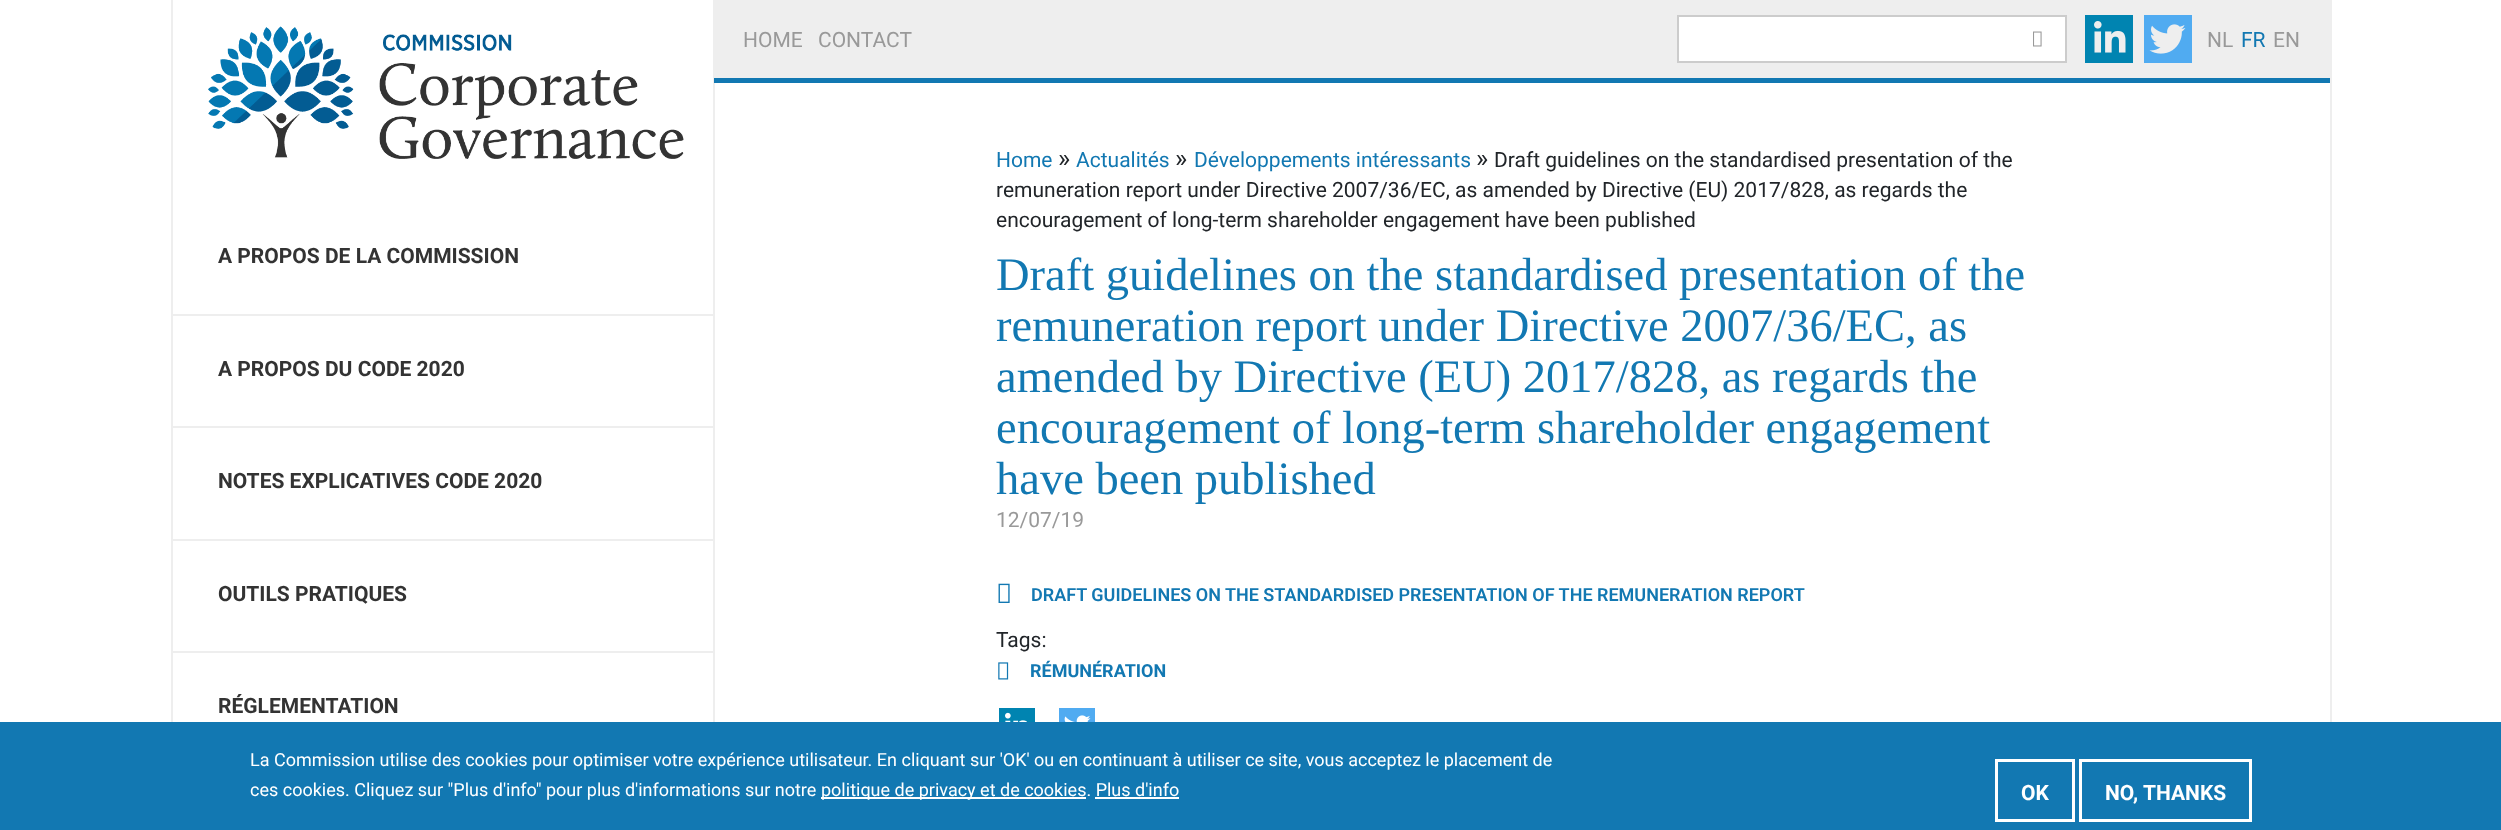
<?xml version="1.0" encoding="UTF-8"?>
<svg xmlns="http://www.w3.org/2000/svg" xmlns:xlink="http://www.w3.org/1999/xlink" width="2501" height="830">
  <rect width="100%" height="100%" fill="#ffffff" />
  <rect x="2330" width="2" height="722" fill="#eeeeee" />
  <rect x="171" width="2" height="722" fill="#eeeeee" />
  <image x="208" y="26" width="476" height="133" xlink:href="image1.png" />
  <rect x="173" y="314" width="540" height="2" fill="#eeeeee" />
  <rect x="173" y="426" width="540" height="2" fill="#eeeeee" />
  <rect x="173" y="539" width="540" height="2" fill="#eeeeee" />
  <rect x="173" y="651" width="540" height="2" fill="#eeeeee" />
  <rect x="713" width="2" height="722" fill="#eeeeee" />
  <rect x="715" width="1615" height="78" fill="#eeeeee" />
  <rect x="714" y="78" width="1616" height="5" fill="#1278b2" />
  <rect x="1678" y="16" width="388" height="46" fill="#ffffff" stroke="#cccccc" stroke-width="2" />
  <image x="2033" y="31" width="9" height="16" xlink:href="image2.png" />
  <rect x="2085" y="15" width="48" height="48" fill="#0084b1" />
  <image x="2094" y="21" width="32" height="32" xlink:href="image3.png" />
  <rect x="2144" y="15" width="48" height="48" fill="#50abf1" />
  <image x="2149" y="24" width="37" height="30" xlink:href="image4.png" />
  <image x="998" y="583" width="12" height="20" xlink:href="image5.png" />
  <image x="998" y="662" width="11" height="18" xlink:href="image6.png" />
  <rect x="999" y="708" width="36" height="14" fill="#0084b1" />
  <image x="1005" y="712" width="22" height="10" xlink:href="image7.png" />
  <rect x="1059" y="708" width="36" height="14" fill="#50abf1" />
  <image x="1064" y="715" width="27" height="7" xlink:href="image8.png" />
  <rect y="722" width="2501" height="108" fill="#1278b2" />
  <rect x="821" y="797" width="265" height="2" fill="#ffffff" />
  <rect x="1095" y="797" width="84" height="2" fill="#ffffff" />
  <rect x="1996.5" y="760.5" width="77" height="60" fill="none" stroke="#ffffff" stroke-width="3" />
  <rect x="2080.5" y="760.5" width="170" height="60" fill="none" stroke="#ffffff" stroke-width="3" />
  <text x="218" y="263" style="font-family: Roboto; font-size: 21px; font-weight: bold; fill: #333333">A PROPOS DE LA COMMISSION</text>
  <text x="218" y="376" style="font-family: Roboto; font-size: 21px; font-weight: bold; fill: #333333">A PROPOS DU CODE 2020</text>
  <text x="218" y="488" style="font-family: Roboto; font-size: 21px; font-weight: bold; fill: #333333">NOTES EXPLICATIVES CODE 2020</text>
  <text x="218" y="601" style="font-family: Roboto; font-size: 21px; font-weight: bold; fill: #333333">OUTILS PRATIQUES</text>
  <text x="218" y="713" style="font-family: Roboto; font-size: 21px; font-weight: bold; fill: #333333">RÉGLEMENTATION</text>
  <text x="743" y="47" style="font-family: Roboto; font-size: 21px; fill: #999999">HOME</text>
  <text x="818" y="47" style="font-family: Roboto; font-size: 21px; fill: #999999">CONTACT</text>
  <text x="2207" y="47" style="font-family: Roboto; font-size: 21px; fill: #999999">NL</text>
  <text x="2241" y="47" style="font-family: Roboto; font-size: 21px; fill: #1278b2">FR</text>
  <text x="2273" y="47" style="font-family: Roboto; font-size: 21px; fill: #999999">EN</text>
  <text x="996" y="167" style="font-family: Roboto; font-size: 21px; fill: #1278b2">Home</text>
  <text x="1058" y="167" style="font-family: Roboto; font-size: 26px; fill: #212529">»</text>
  <text x="1076" y="167" style="font-family: Roboto; font-size: 21px; fill: #1278b2">Actualités</text>
  <text x="1175" y="167" style="font-family: Roboto; font-size: 26px; fill: #212529">»</text>
  <text x="1194" y="167" style="font-family: Roboto; font-size: 21px; fill: #1278b2">Développements intéressants</text>
  <text x="1476" y="167" style="font-family: Roboto; font-size: 26px; fill: #212529">»</text>
  <text x="1494" y="167" style="font-family: Roboto; font-size: 21px; fill: #212529">Draft guidelines on the standardised presentation of the</text>
  <text x="996" y="197" style="font-family: Roboto; font-size: 21px; fill: #212529">remuneration report under Directive 2007/36/EC, as amended by Directive (EU) 2017/828, as regards the</text>
  <text x="996" y="227" style="font-family: Roboto; font-size: 21px; fill: #212529">encouragement of long-term shareholder engagement have been published</text>
  <text x="996" y="290" style="font-family: Liberation Serif; font-size: 46.5px; fill: #1278b2">Draft guidelines on the standardised presentation of the</text>
  <text x="996" y="341" style="font-family: Liberation Serif; font-size: 46.5px; fill: #1278b2">remuneration report under Directive 2007/36/EC, as</text>
  <text x="996" y="392" style="font-family: Liberation Serif; font-size: 46.5px; fill: #1278b2">amended by Directive (EU) 2017/828, as regards the</text>
  <text x="996" y="443" style="font-family: Liberation Serif; font-size: 46.5px; fill: #1278b2">encouragement of long-term shareholder engagement</text>
  <text x="996" y="494" style="font-family: Liberation Serif; font-size: 46.5px; fill: #1278b2">have been published</text>
  <text x="996" y="527" style="font-family: Roboto; font-size: 21px; fill: #999999">12/07/19</text>
  <text x="1031" y="601" style="font-family: Roboto; font-size: 18px; font-weight: 600; fill: #1278b2">DRAFT GUIDELINES ON THE STANDARDISED PRESENTATION OF THE REMUNERATION REPORT</text>
  <text x="996" y="647" style="font-family: Roboto; font-size: 21px; fill: #212529">Tags:</text>
  <text x="1030" y="677" style="font-family: Roboto; font-size: 18px; font-weight: bold; fill: #1278b2">RÉMUNÉRATION</text>
  <text x="250" y="766" style="font-family: Roboto; font-size: 18px; fill: #ffffff">La Commission utilise des cookies pour optimiser votre expérience utilisateur. En cliquant sur 'OK' ou en continuant à utiliser ce site, vous acceptez le placement de</text>
  <text x="250" y="796" style="font-family: Roboto; font-size: 18px; fill: #ffffff">ces cookies. Cliquez sur "Plus d'info" pour plus d'informations sur notre</text>
  <text x="821" y="796" style="font-family: Roboto; font-size: 18px; fill: #ffffff">politique de privacy et de cookies. Plus d'info</text>
  <text x="2021" y="800" style="font-family: Roboto; font-size: 21px; font-weight: bold; fill: #ffffff">OK</text>
  <text x="2105" y="800" style="font-family: Roboto; font-size: 21px; font-weight: bold; fill: #ffffff">NO, THANKS</text>
</svg>
